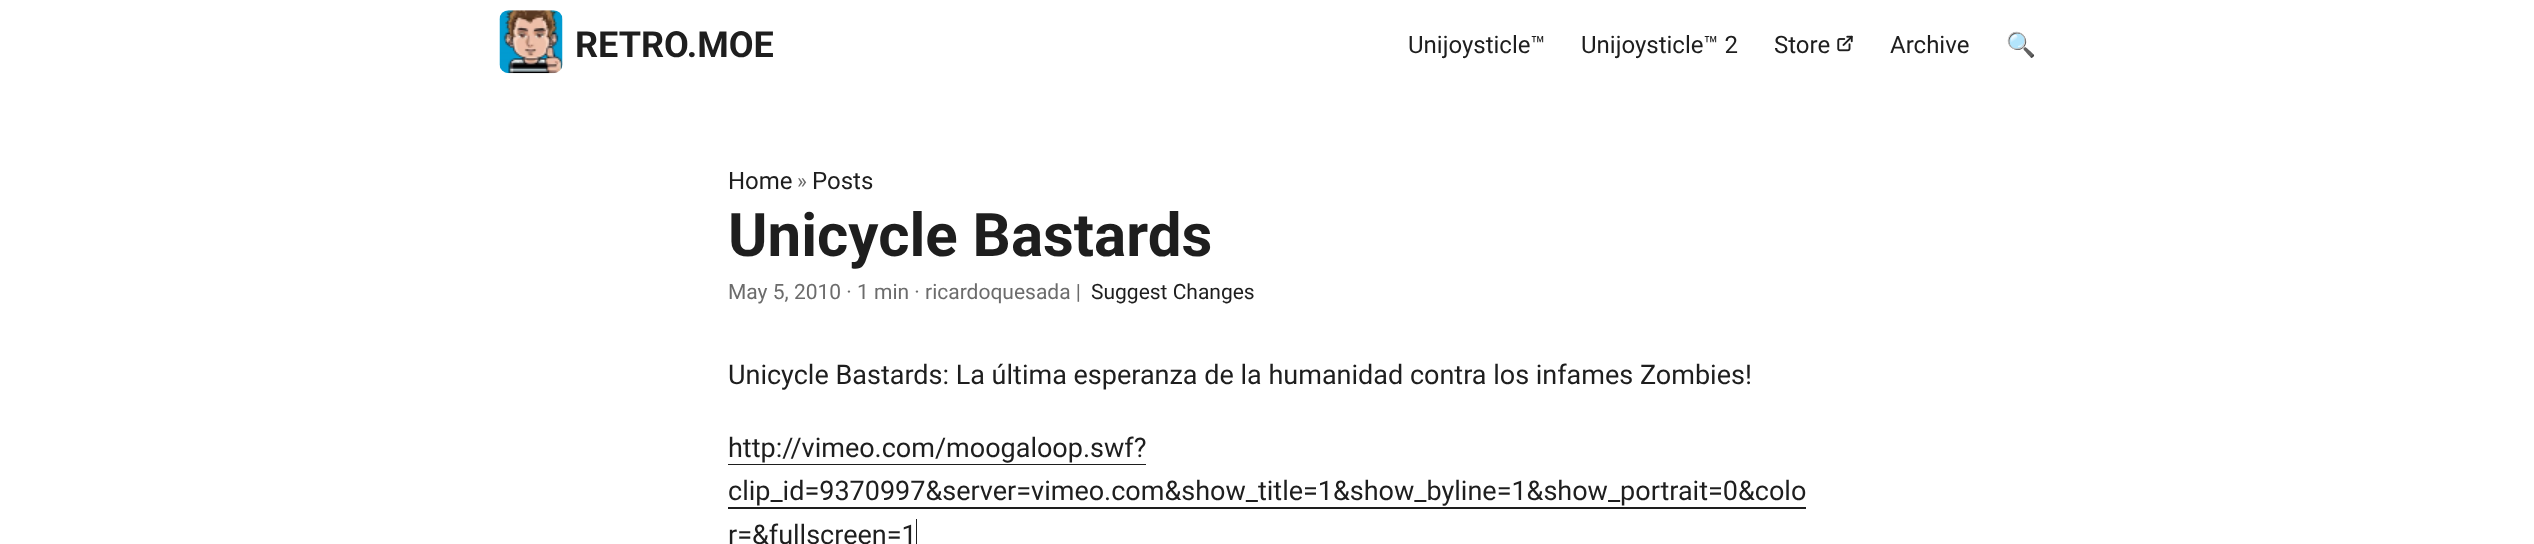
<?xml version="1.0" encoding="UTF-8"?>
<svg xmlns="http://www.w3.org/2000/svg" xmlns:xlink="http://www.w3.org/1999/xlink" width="2534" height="544">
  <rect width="100%" height="100%" fill="#ffffff" />
  <image x="499" y="10" width="64" height="64" xlink:href="image1.png" />
  <image x="1837" y="35" width="16" height="17" xlink:href="image2.png" />
  <rect x="728" y="464" width="418" height="1" fill="#1e1e1e" />
  <rect x="728" y="507" width="1078" height="2" fill="#1e1e1e" />
  <path d="M 728 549 v 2 h 189 v -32 h -1 v 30 z" fill="#1e1e1e" />
  <text x="575" y="57" style="font-family: Roboto; font-size: 36px; font-weight: bold; fill: #1e1e1e">RETRO.MOE</text>
  <text x="1408" y="53" style="font-family: Roboto; font-size: 24px; fill: #1e1e1e">Unijoysticle™</text>
  <text x="1581" y="53" style="font-family: Roboto; font-size: 24px; fill: #1e1e1e">Unijoysticle™ 2</text>
  <text x="1774" y="53" style="font-family: Roboto; font-size: 24px; fill: #1e1e1e">Store</text>
  <text x="1890" y="53" style="font-family: Roboto; font-size: 24px; fill: #1e1e1e">Archive</text>
  <text x="2006" y="53" style="font-family: Noto Color Emoji; font-size: 24px; fill: #1e1e1e">🔍</text>
  <text x="728" y="189" style="font-family: Roboto; font-size: 24px; fill: #1e1e1e">Home</text>
  <text x="797" y="188" style="font-family: Roboto; font-size: 21px; fill: #6c6c6c">»</text>
  <text x="812" y="189" style="font-family: Roboto; font-size: 24px; fill: #1e1e1e">Posts</text>
  <text x="728" y="256" style="font-family: Roboto; font-size: 60px; font-weight: bold; fill: #1e1e1e">Unicycle Bastards</text>
  <text x="728" y="299" style="font-family: Roboto; font-size: 21px; fill: #6c6c6c">May 5, 2010 · 1 min · ricardoquesada |</text>
  <text x="1091" y="299" style="font-family: Roboto; font-size: 21px; fill: #1e1e1e">Suggest Changes</text>
  <text x="728" y="384" style="font-family: Roboto; font-size: 27px; fill: #1e1e1e">Unicycle Bastards: La última esperanza de la humanidad contra los infames Zombies!</text>
  <text x="728" y="457" style="font-family: Roboto; font-size: 27px; fill: #1e1e1e">http://vimeo.com/moogaloop.swf?</text>
  <text x="728" y="500" style="font-family: Roboto; font-size: 27px; fill: #1e1e1e">clip_id=9370997&amp;server=vimeo.com&amp;show_title=1&amp;show_byline=1&amp;show_portrait=0&amp;colo</text>
  <text x="728" y="544" style="font-family: Roboto; font-size: 27px; fill: #1e1e1e">r=&amp;fullscreen=1</text>
</svg>
